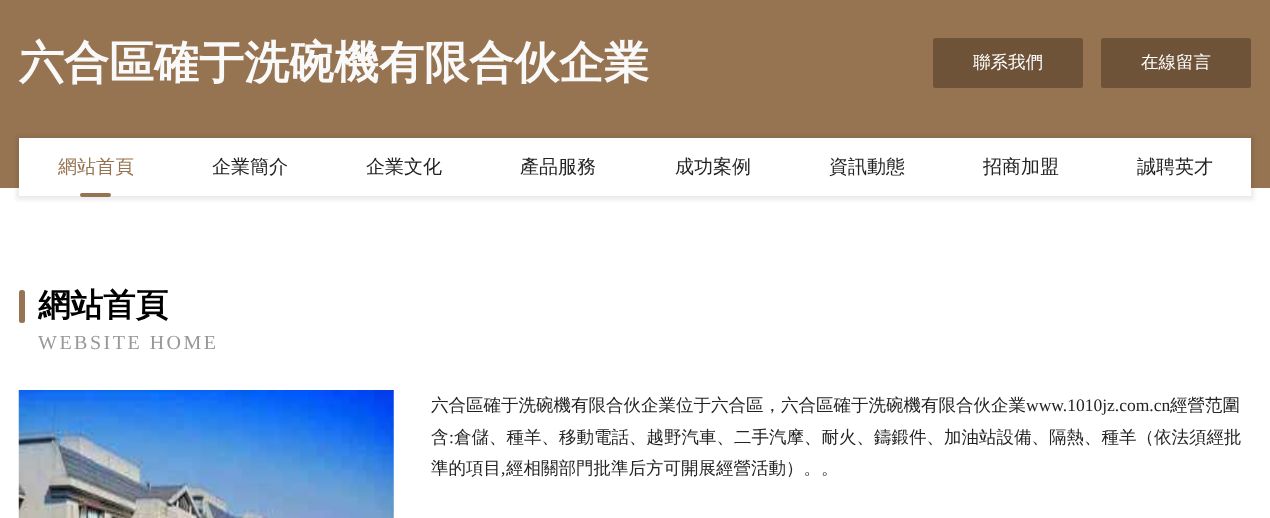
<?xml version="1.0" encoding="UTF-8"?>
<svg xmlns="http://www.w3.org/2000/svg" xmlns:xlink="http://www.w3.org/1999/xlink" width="1270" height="518">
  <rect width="100%" height="100%" fill="#ffffff" />
  <rect width="1270" height="188" fill="#977451" />
  <rect x="933" y="38" width="150" height="50" rx="2.5" fill="#6f5338" />
  <rect x="1101" y="38" width="150" height="50" rx="2.5" fill="#6f5338" />
  <rect x="16" y="136" width="1238" height="64" fill="#000000" fill-opacity="0.08" filter="blur(2px)" />
  <rect x="19" y="138" width="1232" height="58" fill="#ffffff" />
  <rect x="80" y="193" width="31" height="4" rx="2" fill="#977451" />
  <rect x="19" y="290" width="6" height="33" rx="2.5" fill="#977451" />
  <image x="18" y="390" width="376" height="128" xlink:href="image1.png" />
  <text x="19" y="78" style="font-family: WenQuanYi Zen Hei; font-size: 45px; font-weight: bold; fill: #f9f9f9">六合區確于洗碗機有限合伙企業</text>
  <text x="973" y="68" style="font-family: WenQuanYi Zen Hei; font-size: 17.5px; font-weight: 500; fill: #ffffff">聯系我們</text>
  <text x="1141" y="68" style="font-family: WenQuanYi Zen Hei; font-size: 17.5px; font-weight: 500; fill: #ffffff">在線留言</text>
  <text x="58" y="173" style="font-family: WenQuanYi Zen Hei; font-size: 19px; font-weight: 500; fill: #977451">網站首頁</text>
  <text x="212" y="173" style="font-family: WenQuanYi Zen Hei; font-size: 19px; font-weight: 500; fill: #232323">企業簡介</text>
  <text x="366" y="173" style="font-family: WenQuanYi Zen Hei; font-size: 19px; font-weight: 500; fill: #232323">企業文化</text>
  <text x="520" y="173" style="font-family: WenQuanYi Zen Hei; font-size: 19px; font-weight: 500; fill: #232323">產品服務</text>
  <text x="675" y="173" style="font-family: WenQuanYi Zen Hei; font-size: 19px; font-weight: 500; fill: #232323">成功案例</text>
  <text x="829" y="173" style="font-family: WenQuanYi Zen Hei; font-size: 19px; font-weight: 500; fill: #232323">資訊動態</text>
  <text x="983" y="173" style="font-family: WenQuanYi Zen Hei; font-size: 19px; font-weight: 500; fill: #232323">招商加盟</text>
  <text x="1137" y="173" style="font-family: WenQuanYi Zen Hei; font-size: 19px; font-weight: 500; fill: #232323">誠聘英才</text>
  <text x="38" y="316" style="font-family: WenQuanYi Zen Hei; font-size: 32.5px; font-weight: bold; fill: #000000">網站首頁</text>
  <text x="38" y="349" style="font-family: Liberation Serif; font-size: 20px; letter-spacing: 2.5px; fill: #989898">WEBSITE HOME</text>
  <text x="431" y="411" style="font-family: WenQuanYi Zen Hei; font-size: 17.5px; font-weight: 500; fill: #232323">六合區確于洗碗機有限合伙企業位于六合區，六合區確于洗碗機有限合伙企業</text>
  <text x="1026" y="411" style="font-family: Liberation Serif; font-size: 17.5px; fill: #232323">www.1010jz.com.cn</text>
  <text x="1170" y="411" style="font-family: WenQuanYi Zen Hei; font-size: 17.5px; font-weight: 500; fill: #232323">經營范圍</text>
  <text x="431" y="443" style="font-family: WenQuanYi Zen Hei; font-size: 17.5px; font-weight: 500; fill: #232323">含</text>
  <text x="449" y="443" style="font-family: Liberation Serif; font-size: 17.5px; fill: #232323">:</text>
  <text x="454" y="443" style="font-family: WenQuanYi Zen Hei; font-size: 17.5px; font-weight: 500; fill: #232323">倉儲、種羊、移動電話、越野汽車、二手汽摩、耐火、鑄鍛件、加油站設備、隔熱、種羊（依法須經批</text>
  <text x="431" y="474" style="font-family: WenQuanYi Zen Hei; font-size: 17.5px; font-weight: 500; fill: #232323">準的項目</text>
  <text x="501" y="474" style="font-family: Liberation Serif; font-size: 17.5px; fill: #232323">,</text>
  <text x="506" y="474" style="font-family: WenQuanYi Zen Hei; font-size: 17.5px; font-weight: 500; fill: #232323">經相關部門批準后方可開展經營活動）。。</text>
</svg>
